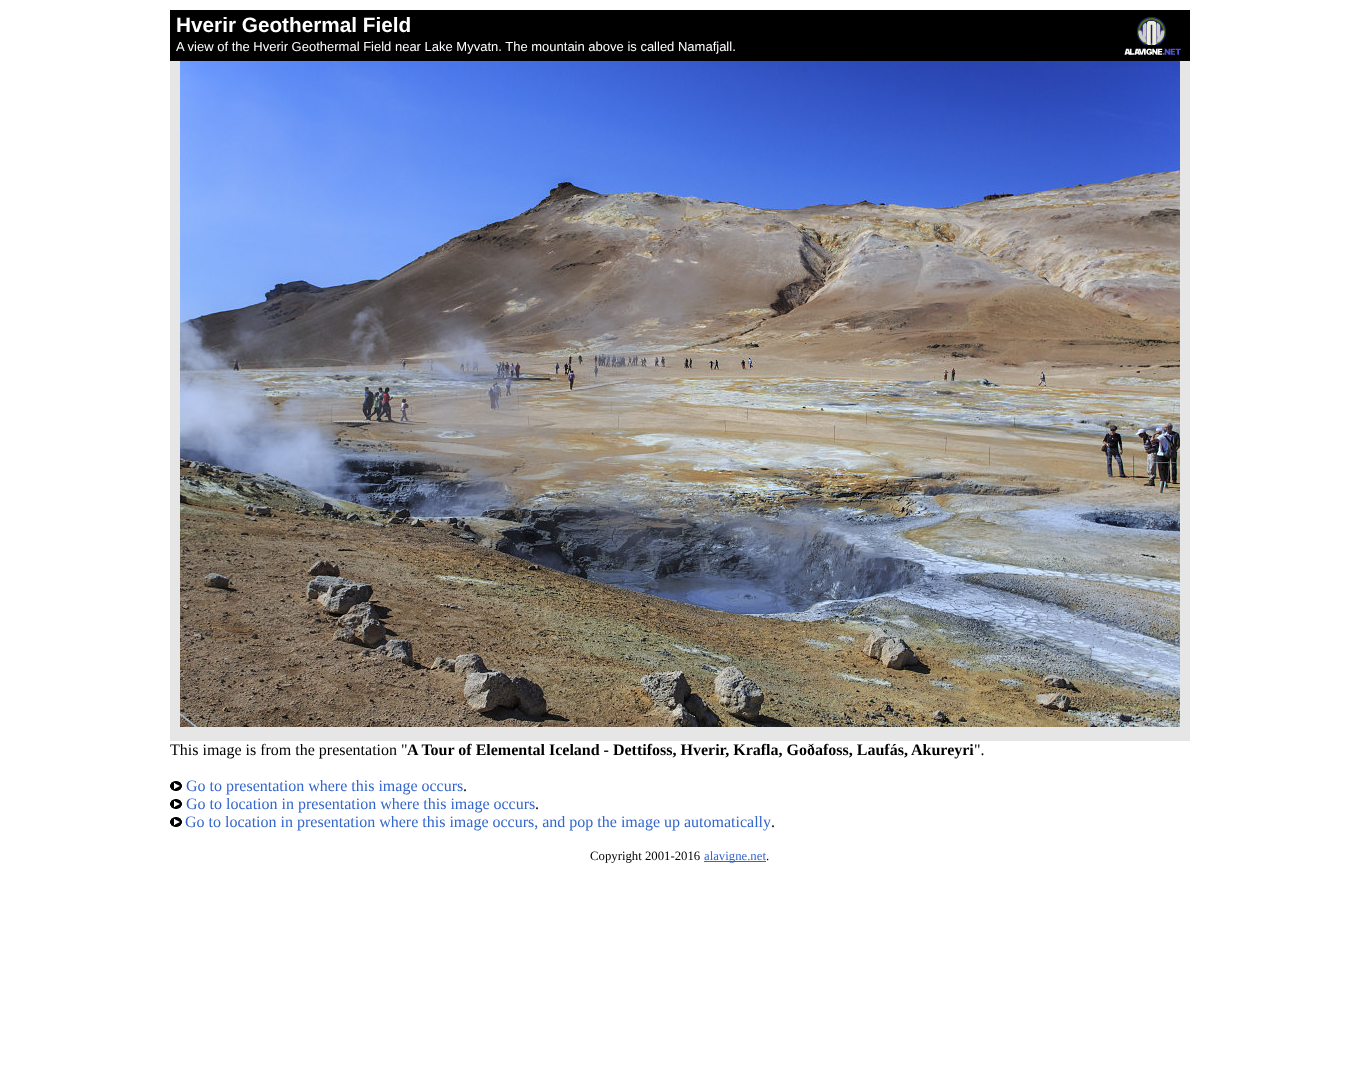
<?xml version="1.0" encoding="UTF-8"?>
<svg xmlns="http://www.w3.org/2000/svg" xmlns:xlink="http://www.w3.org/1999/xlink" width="1359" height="1072">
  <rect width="100%" height="100%" fill="#ffffff" />
  <rect x="170" y="10" width="1020" height="51" fill="#000000" />
  <image x="1124" y="17" width="57" height="38" xlink:href="image1.png" />
  <rect x="170" y="61" width="1020" height="680" fill="#e6e6e6" />
  <image x="180" y="61" width="1000" height="666" xlink:href="image2.png" />
  <image x="170" y="781" width="12" height="10" xlink:href="image3.png" />
  <image x="170" y="799" width="12" height="10" xlink:href="image3.png" />
  <image x="170" y="817" width="12" height="10" xlink:href="image3.png" />
  <rect x="704" y="861" width="62" height="1" fill="#3366cc" />
  <text x="176" y="32" style="font-family: Liberation Sans; font-size: 20.75px; font-weight: bold; fill: #ffffff">Hverir Geothermal Field</text>
  <text x="176" y="51" style="font-family: Liberation Sans; font-size: 13px; fill: #ffffff">A view of the Hverir Geothermal Field near Lake Myvatn. The mountain above is called Namafjall.</text>
  <text x="170" y="755" style="font-family: Liberation Serif; font-size: 16px; fill: #000000">This image is from the presentation "</text>
  <text x="407" y="755" style="font-family: Liberation Serif; font-size: 16px; font-weight: bold; fill: #000000">A Tour of Elemental Iceland - Dettifoss, Hverir, Krafla, Goðafoss, Laufás, Akureyri</text>
  <text x="974" y="755" style="font-family: Liberation Serif; font-size: 16px; fill: #000000">".</text>
  <text x="186" y="791" style="font-family: Liberation Serif; font-size: 16px; fill: #3366cc">Go to presentation where this image occurs</text>
  <text x="463" y="791" style="font-family: Liberation Serif; font-size: 16px; fill: #000000">.</text>
  <text x="186" y="809" style="font-family: Liberation Serif; font-size: 16px; fill: #3366cc">Go to location in presentation where this image occurs</text>
  <text x="535" y="809" style="font-family: Liberation Serif; font-size: 16px; fill: #000000">.</text>
  <text x="185" y="827" style="font-family: Liberation Serif; font-size: 16px; fill: #3366cc">Go to location in presentation where this image occurs, and pop the image up automatically</text>
  <text x="771" y="827" style="font-family: Liberation Serif; font-size: 16px; fill: #000000">.</text>
  <text x="590" y="860" style="font-family: Liberation Serif; font-size: 12.75px; fill: #000000">Copyright 2001-2016</text>
  <text x="704" y="860" style="font-family: Liberation Serif; font-size: 12.75px; fill: #3366cc">alavigne.net</text>
  <text x="766" y="860" style="font-family: Liberation Serif; font-size: 12.75px; fill: #000000">.</text>
</svg>
